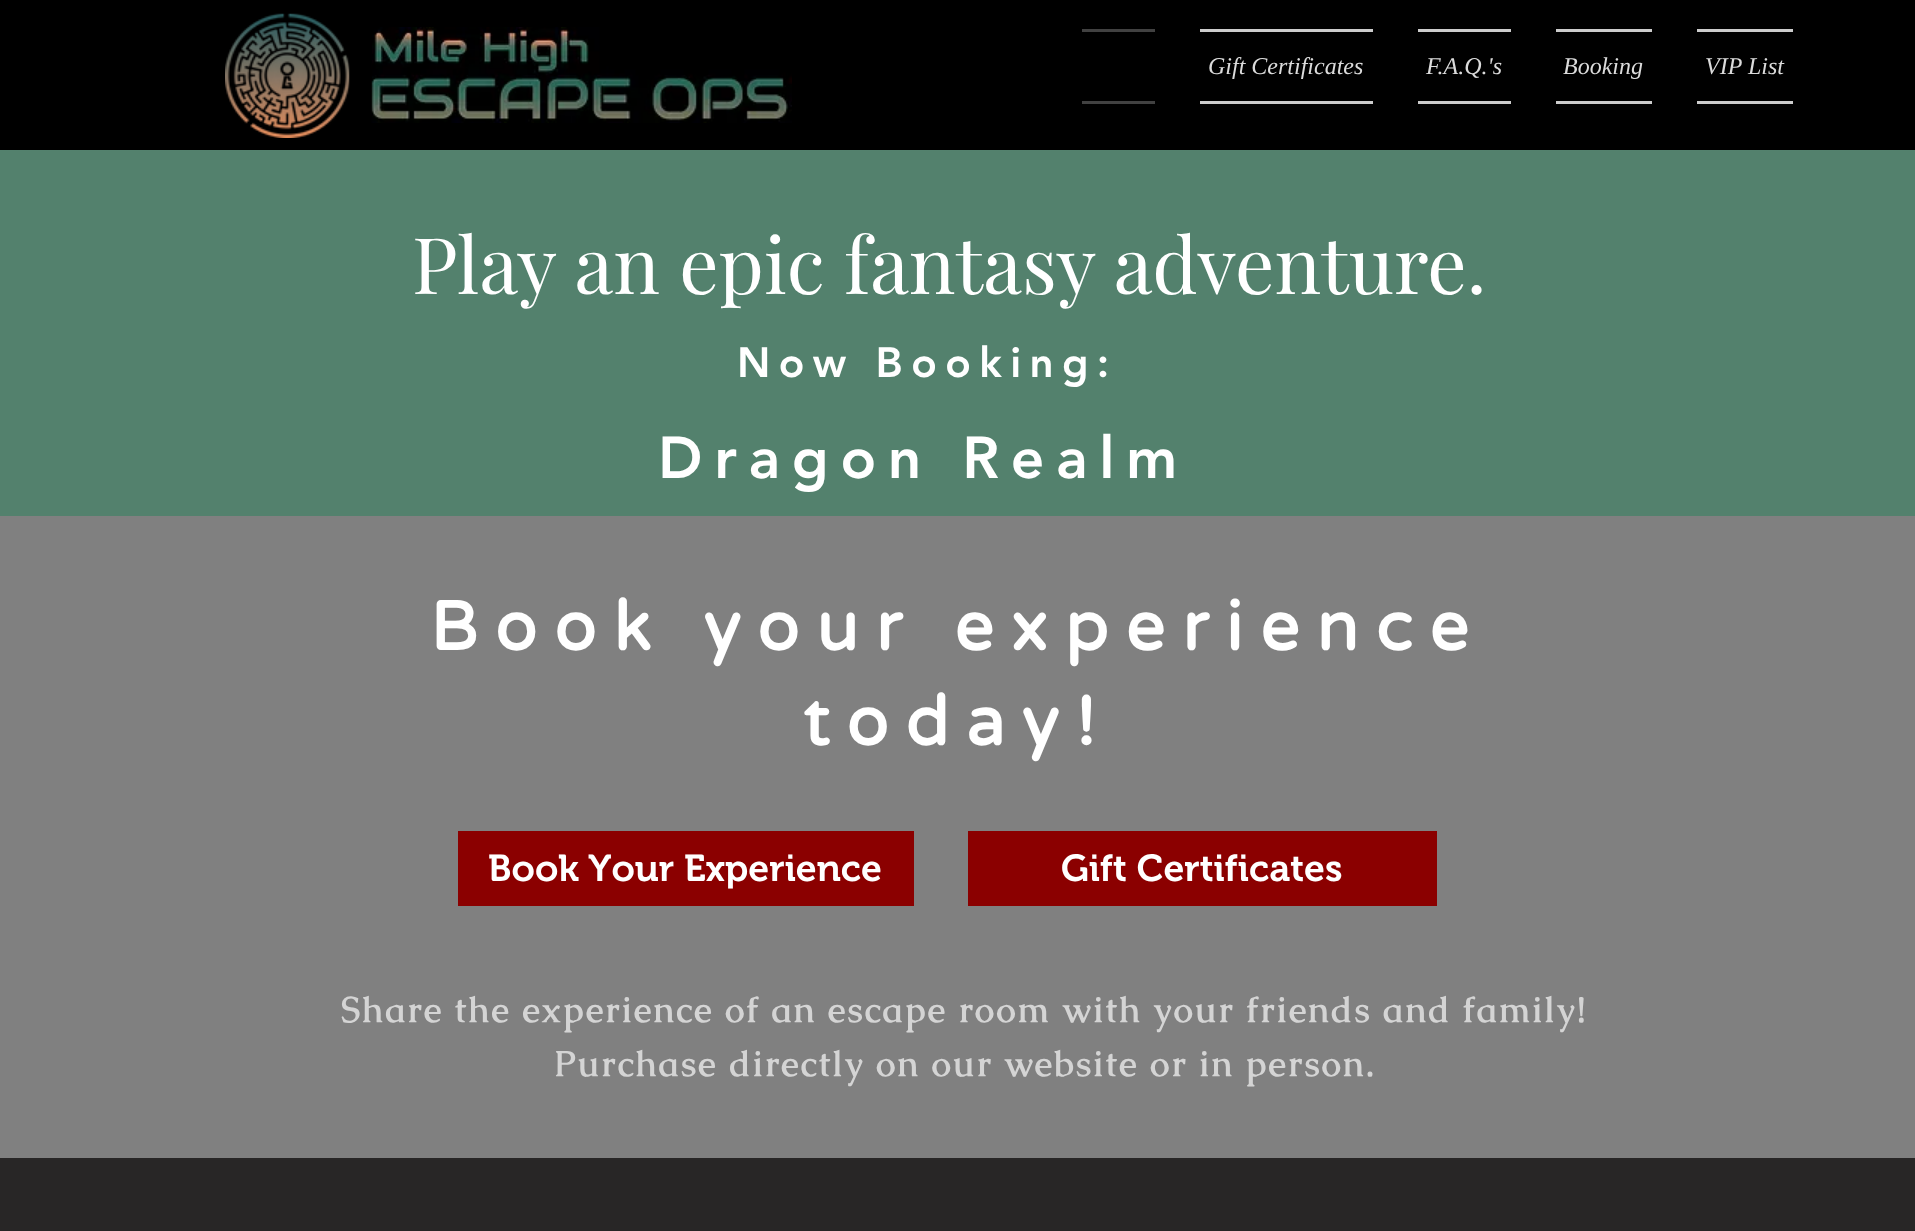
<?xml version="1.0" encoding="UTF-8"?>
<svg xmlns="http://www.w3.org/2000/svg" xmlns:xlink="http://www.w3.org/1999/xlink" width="1915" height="1231">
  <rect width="100%" height="100%" fill="#53816d" />
  <rect width="1915" height="150" fill="#000000" />
  <image x="225" y="13" width="125" height="125" xlink:href="image1.png" />
  <image x="371" y="27" width="421" height="96" xlink:href="image2.png" />
  <rect x="1082" y="29" width="73" height="3" fill="#414141" />
  <rect x="1082" y="101" width="73" height="3" fill="#414141" />
  <rect x="1200" y="29" width="173" height="3" fill="#cccccc" />
  <rect x="1200" y="101" width="173" height="3" fill="#cccccc" />
  <rect x="1418" y="29" width="93" height="3" fill="#cccccc" />
  <rect x="1418" y="101" width="93" height="3" fill="#cccccc" />
  <rect x="1556" y="29" width="96" height="3" fill="#cccccc" />
  <rect x="1556" y="101" width="96" height="3" fill="#cccccc" />
  <rect x="1697" y="29" width="96" height="3" fill="#cccccc" />
  <rect x="1697" y="101" width="96" height="3" fill="#cccccc" />
  <rect y="516" width="1915" height="642" fill="#808080" />
  <rect x="458" y="831" width="456" height="75" fill="#8b0000" />
  <rect x="968" y="831" width="469" height="75" fill="#8b0000" />
  <rect y="1158" width="1915" height="73" fill="#282626" />
  <text x="1208" y="74" style="font-family: Liberation Serif; font-size: 24px; font-style: italic; fill: #dbdbdb">Gift Certificates</text>
  <text x="1426" y="74" style="font-family: Liberation Serif; font-size: 24px; font-style: italic; fill: #dbdbdb">F.A.Q.'s</text>
  <text x="1563" y="74" style="font-family: Liberation Serif; font-size: 24px; font-style: italic; fill: #dbdbdb">Booking</text>
  <text x="1705" y="74" style="font-family: Liberation Serif; font-size: 24px; font-style: italic; fill: #dbdbdb">VIP List</text>
  <text x="412" y="294" style="font-family: Playfair Display; font-size: 78px; fill: #ffffff">Play an epic fantasy adventure.</text>
  <text x="737" y="377" style="font-family: 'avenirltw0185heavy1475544'; font-size: 42px; font-weight: 900; letter-spacing: 8.4px; fill: #ffffff">Now Booking:</text>
  <text x="658" y="478" style="font-family: 'avenirltw0185heavy1475544'; font-size: 58.5px; font-weight: 900; letter-spacing: 11.75px; fill: #ffffff">Dragon Realm</text>
  <text x="430" y="650" style="font-family: Varela Round; font-size: 69px; font-weight: bold; letter-spacing: 17.25px; fill: #ffffff">Book your experience</text>
  <text x="803" y="745" style="font-family: Varela Round; font-size: 69px; font-weight: bold; letter-spacing: 17.25px; fill: #ffffff">today!</text>
  <text x="488" y="881" style="font-family: 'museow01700'; font-size: 37.5px; font-weight: 600; fill: #ffffff">Book Your Experience</text>
  <text x="1061" y="881" style="font-family: 'museow01700'; font-size: 37.5px; font-weight: 600; fill: #ffffff">Gift Certificates</text>
  <text x="341" y="1022" style="font-family: Caudex; font-size: 36px; font-weight: bold; letter-spacing: 1.8px; fill: #d4d4d4">Share the experience of an escape room with your friends and family!</text>
  <text x="554" y="1076" style="font-family: Caudex; font-size: 36px; font-weight: bold; letter-spacing: 1.8px; fill: #d4d4d4">Purchase directly on our website or in person.</text>
</svg>
